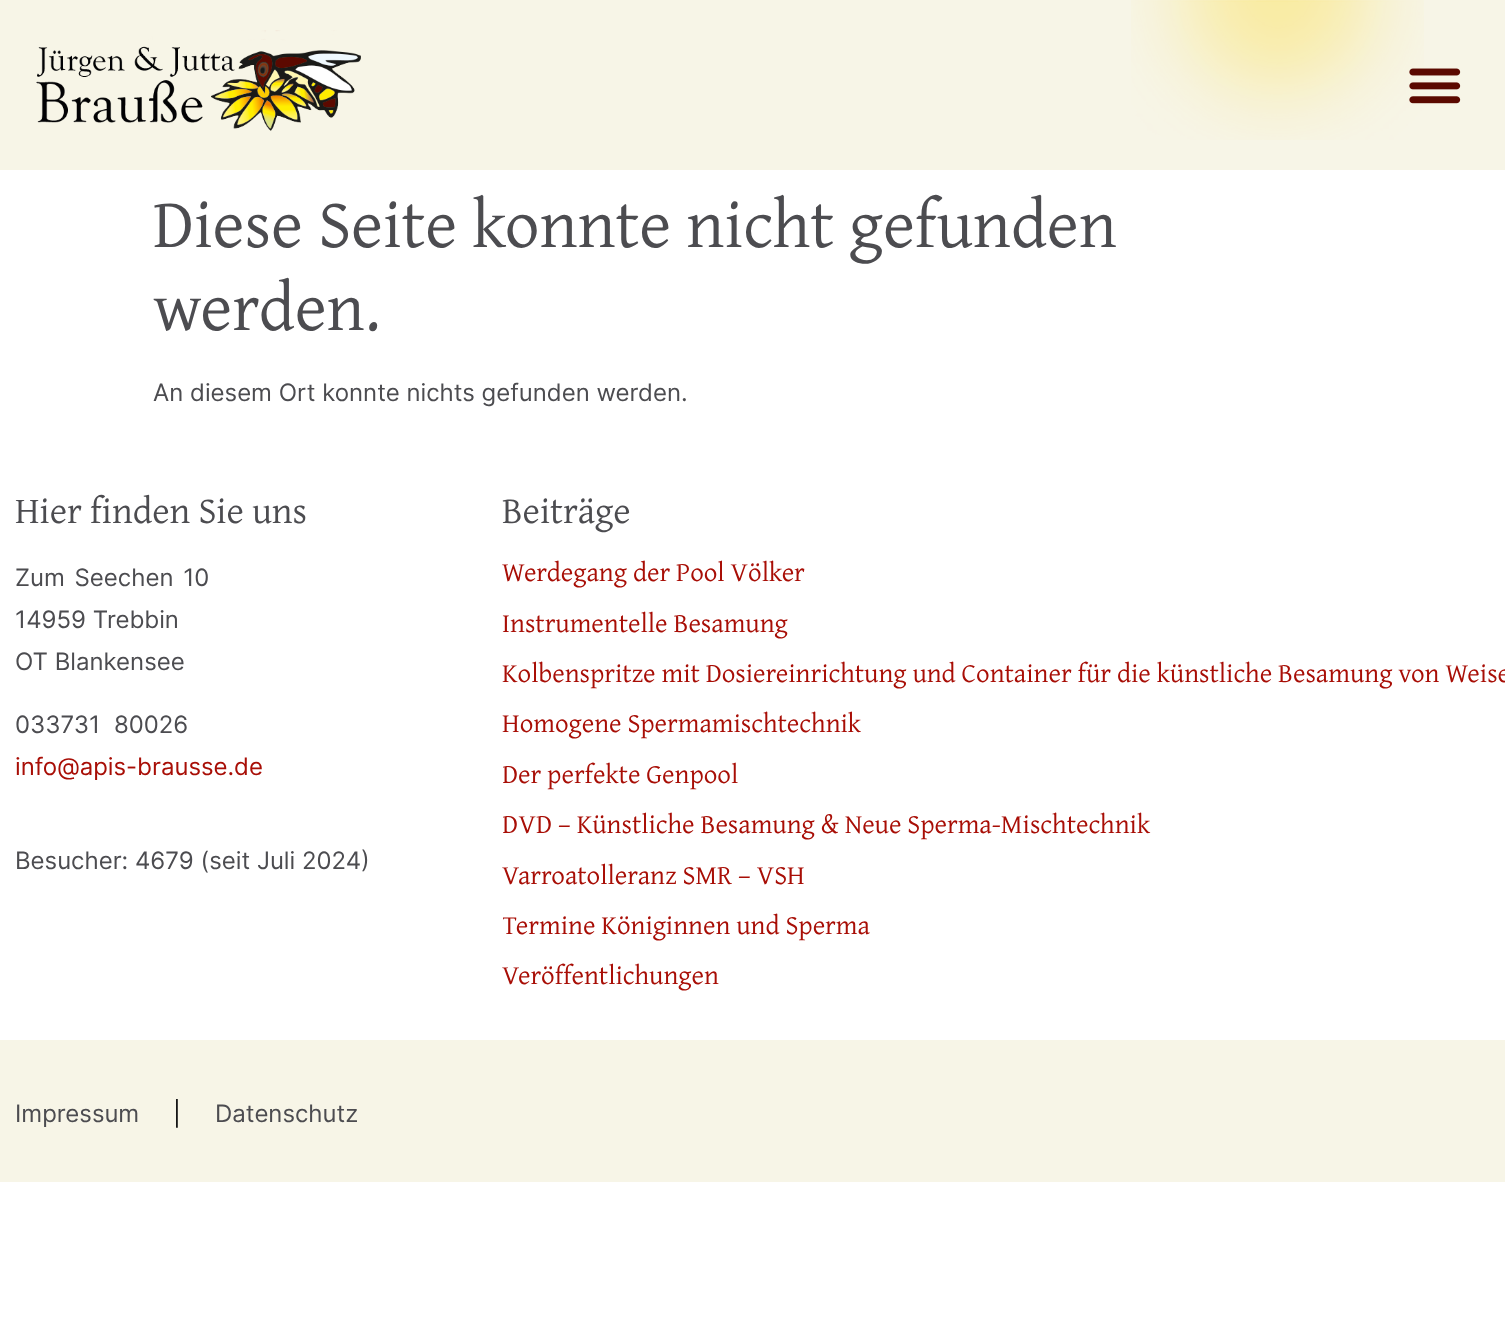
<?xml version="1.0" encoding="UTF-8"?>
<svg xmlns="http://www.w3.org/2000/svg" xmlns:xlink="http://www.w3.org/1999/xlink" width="1505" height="1330">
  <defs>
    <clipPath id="clip1"><rect x="503" y="758" width="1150" height="49" rx="5" /></clipPath>
    <clipPath id="clip2"><rect x="503" y="807" width="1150" height="51" rx="5" /></clipPath>
    <clipPath id="clip3"><rect x="503" y="909" width="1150" height="50" rx="5" /></clipPath>
  </defs>
  <rect width="100%" height="100%" fill="#ffffff" />
  <rect width="1505" height="170" fill="#f7f5e7" />
  <image x="1131" y="0" width="293" height="140" xlink:href="image1.png" />
  <image x="36" y="30" width="325" height="101" xlink:href="image2.png" />
  <image x="1409" y="68" width="52" height="36" xlink:href="image3.png" />
  <rect y="1040" width="1505" height="142" fill="#f7f5e7" />
  <text x="153" y="247" style="font-family: Gentium Plus; font-size: 69px; fill: #4c4c50">Diese Seite konnte nicht gefunden</text>
  <text x="153" y="330" style="font-family: Gentium Plus; font-size: 69px; fill: #4c4c50">werden.</text>
  <text x="153" y="401" style="font-family: Inter; font-size: 24px; fill: #4c4c50">An diesem Ort konnte nichts gefunden werden.</text>
  <text x="15" y="523" style="font-family: Gentium Plus; font-size: 37.5px; fill: #4c4c50">Hier finden Sie uns</text>
  <text x="15" y="586" word-spacing="3" style="font-family: Inter; font-size: 24px; fill: #4c4c50">Zum Seechen 10</text>
  <text x="15" y="628" style="font-family: Inter; font-size: 24px; fill: #4c4c50">14959 Trebbin</text>
  <text x="15" y="670" style="font-family: Inter; font-size: 24px; fill: #4c4c50">OT Blankensee</text>
  <text x="15" y="733" word-spacing="7" style="font-family: Inter; font-size: 24px; fill: #4c4c50">033731 80026</text>
  <text x="15" y="775" style="font-family: Inter; font-size: 24px; fill: #a80e06">info@apis-brausse.de</text>
  <text x="15" y="869" style="font-family: Inter; font-size: 24px; fill: #4c4c50">Besucher: 4679 (seit Juli 2024)</text>
  <text x="502" y="523" style="font-family: Gentium Plus; font-size: 37.5px; fill: #4c4c50">Beiträge</text>
  <text x="502" y="581" style="font-family: Gentium Plus; font-size: 27px; fill: #a80e06">Werdegang der Pool Völker</text>
  <text x="502" y="632" style="font-family: Gentium Plus; font-size: 27px; fill: #a80e06">Instrumentelle Besamung</text>
  <text x="502" y="682" style="font-family: Gentium Plus; font-size: 27px; fill: #a80e06">Kolbenspritze mit Dosiereinrichtung und Container für die künstliche Besamung von Weise</text>
  <text x="502" y="732" style="font-family: Gentium Plus; font-size: 27px; fill: #a80e06">Homogene Spermamischtechnik</text>
  <g clip-path="url(#clip1)">
    <text x="502" y="783" style="font-family: Gentium Plus; font-size: 27px; fill: #a80e06">Der perfekte Genpool</text>
  </g>
  <g clip-path="url(#clip2)">
    <text x="502" y="833" style="font-family: Gentium Plus; font-size: 27px; fill: #a80e06">DVD – Künstliche Besamung &amp; Neue Sperma-Mischtechnik</text>
  </g>
  <text x="502" y="884" style="font-family: Gentium Plus; font-size: 27px; fill: #a80e06">Varroatolleranz SMR – VSH</text>
  <g clip-path="url(#clip3)">
    <text x="502" y="934" style="font-family: Gentium Plus; font-size: 27px; fill: #a80e06">Termine Königinnen und Sperma</text>
  </g>
  <text x="502" y="984" style="font-family: Gentium Plus; font-size: 27px; fill: #a80e06">Veröffentlichungen</text>
  <text x="15" y="1122" style="font-family: Inter; font-size: 24px; fill: #4c4c50">Impressum</text>
  <text x="173" y="1122" style="font-family: Inter; font-size: 24px; fill: #020204">|</text>
  <text x="215" y="1122" style="font-family: Inter; font-size: 24px; fill: #4c4c50">Datenschutz</text>
</svg>
